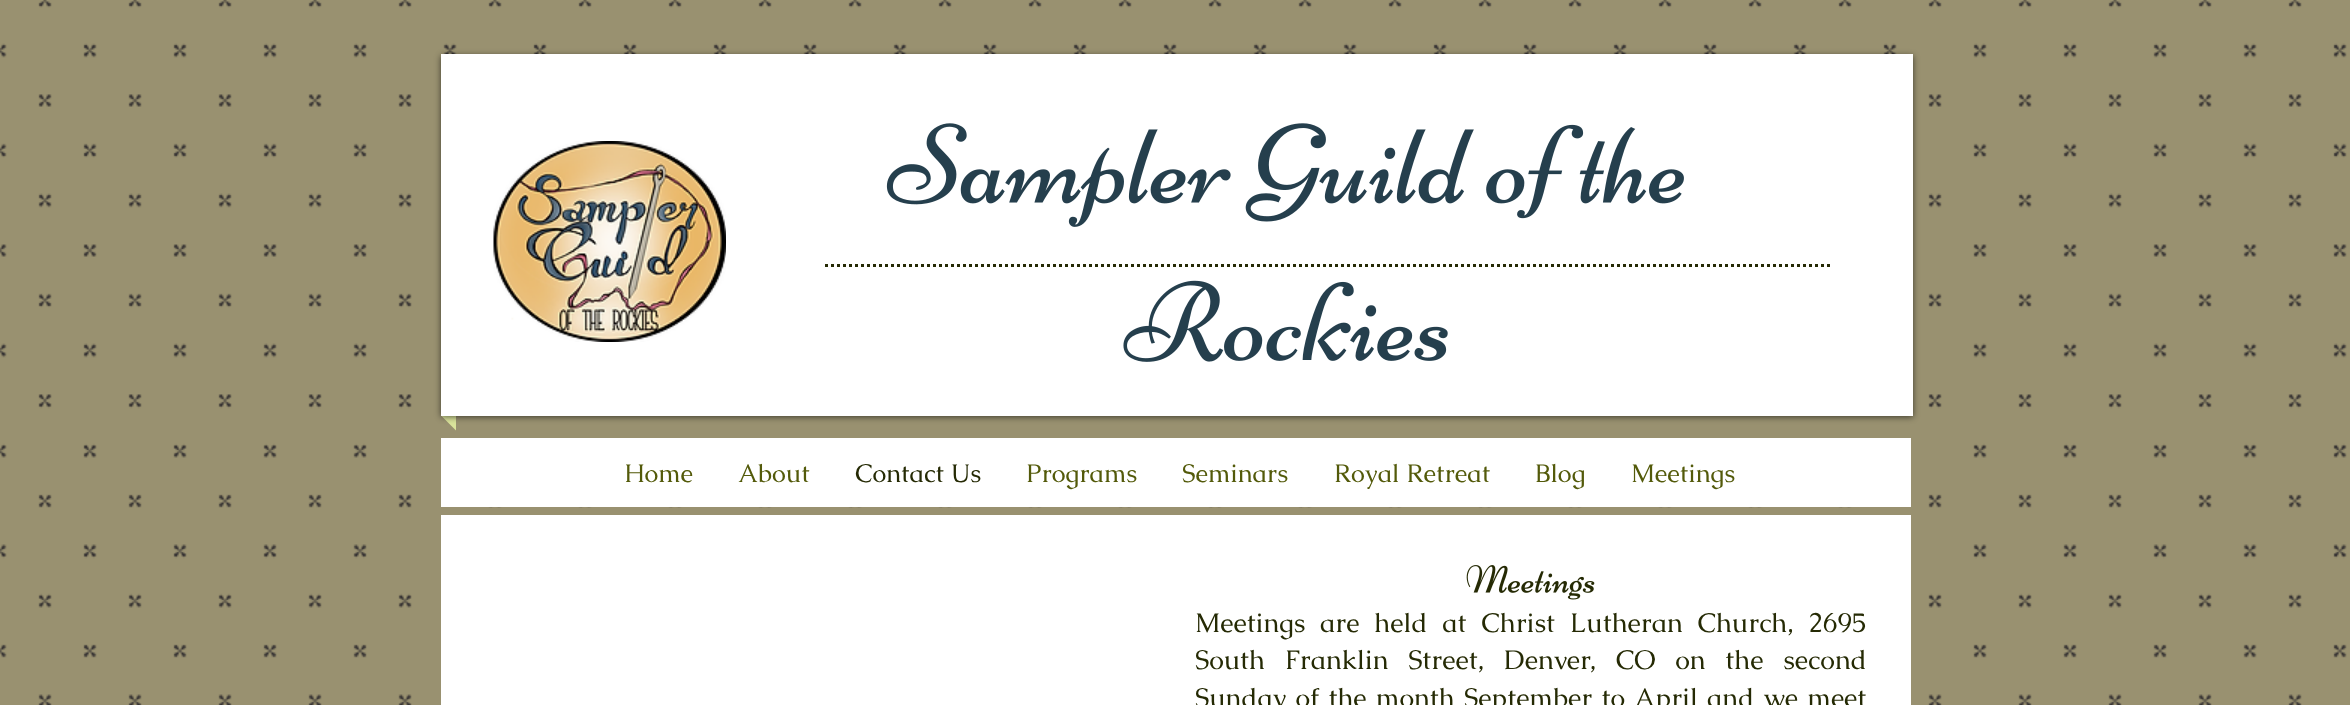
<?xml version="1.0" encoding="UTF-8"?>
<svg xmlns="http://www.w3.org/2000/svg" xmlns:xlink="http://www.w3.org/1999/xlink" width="2350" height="705">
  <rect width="100%" height="100%" fill="#999170" />
  <image x="0" y="0" width="2347" height="705" xlink:href="image1.png" />
  <path d="M 441 415.5 h 15 v 15 z" fill="#dae39b" />
  <rect x="441" y="56" width="1472" height="361" fill="#000000" fill-opacity="0.6" filter="blur(3px)" />
  <rect x="441" y="54" width="1472" height="362" fill="#ffffff" />
  <image x="493" y="141" width="233" height="201" xlink:href="image2.png" />
  <image x="886" y="123" width="798" height="104" xlink:href="image3.png" />
  <image x="1123" y="280" width="325" height="82" xlink:href="image4.png" />
  <path d="M 825 265.5 h 1005" fill="none" stroke="#252a04" stroke-width="3" stroke-dasharray="3 3" />
  <rect x="441" y="438" width="1470" height="69" fill="#ffffff" />
  <rect x="441" y="515" width="1470" height="190" fill="#ffffff" />
  <image x="1466" y="565" width="129" height="35" xlink:href="image5.png" />
  <text x="624" y="482" style="font-family: Caudex; font-size: 25.5px; fill: #535a0a">Home</text>
  <text x="738" y="482" style="font-family: Caudex; font-size: 25.5px; fill: #535a0a">About</text>
  <text x="855" y="482" style="font-family: Caudex; font-size: 25.5px; fill: #252a04">Contact Us</text>
  <text x="1026" y="482" style="font-family: Caudex; font-size: 25.5px; fill: #535a0a">Programs</text>
  <text x="1182" y="482" style="font-family: Caudex; font-size: 25.5px; fill: #535a0a">Seminars</text>
  <text x="1334" y="482" style="font-family: Caudex; font-size: 25.5px; fill: #535a0a">Royal Retreat</text>
  <text x="1535" y="482" style="font-family: Caudex; font-size: 25.5px; fill: #535a0a">Blog</text>
  <text x="1631" y="482" style="font-family: Caudex; font-size: 25.5px; fill: #535a0a">Meetings</text>
  <text x="1195" y="632" word-spacing="7.5" style="font-family: Caudex; font-size: 27px; fill: #252a04">Meetings are held at Christ Lutheran Church, 2695</text>
  <text x="1195" y="669" word-spacing="12.5" style="font-family: Caudex; font-size: 27px; fill: #252a04">South Franklin Street, Denver, CO on the second</text>
  <text x="1195" y="707" word-spacing="2" style="font-family: Caudex; font-size: 27px; fill: #252a04">Sunday of the month September to April and we meet</text>
</svg>
